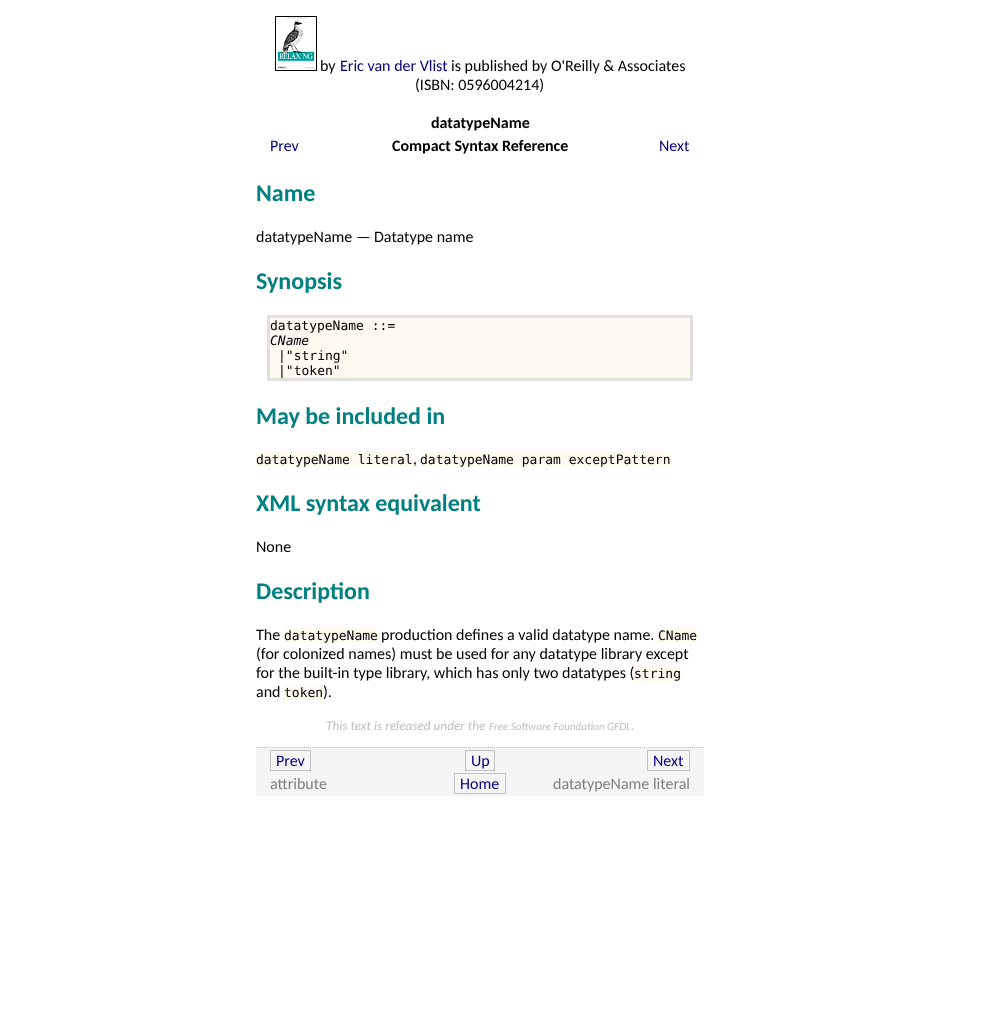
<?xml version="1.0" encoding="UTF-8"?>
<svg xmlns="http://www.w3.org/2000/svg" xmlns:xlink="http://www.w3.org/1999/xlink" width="992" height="1015">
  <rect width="100%" height="100%" fill="#ffffff" />
  <image x="275" y="16" width="42" height="55" xlink:href="image1.png" />
  <rect x="267" y="315" width="426" height="66" fill="#e0e0e0" />
  <rect x="270" y="318" width="420" height="60" fill="#fffaf0" />
  <rect x="256" y="452" width="157" height="15" fill="#fffaf0" />
  <rect x="420" y="452" width="251" height="15" fill="#fffaf0" />
  <rect x="284" y="628" width="94" height="15" fill="#fffaf0" />
  <rect x="658" y="628" width="39" height="15" fill="#fffaf0" />
  <rect x="634" y="666" width="47" height="15" fill="#fffaf0" />
  <rect x="284" y="685" width="39" height="15" fill="#fffaf0" />
  <rect x="256" y="747" width="448" height="49" fill="#f5f5f5" />
  <path d="M 256 747.5 h 448" fill="none" stroke="#c0c0c0" stroke-dasharray="1 1" />
  <rect x="270.5" y="750.5" width="40" height="20" fill="none" stroke="#c0c0c0" />
  <rect x="465.5" y="750.5" width="29" height="20" fill="none" stroke="#c0c0c0" />
  <rect x="647.5" y="750.5" width="42" height="20" fill="none" stroke="#c0c0c0" />
  <rect x="454.5" y="773.5" width="51" height="20" fill="none" stroke="#c0c0c0" />
  <text x="320" y="71" style="font-family: Carlito; font-size: 16px; fill: #000000">by</text>
  <text x="340" y="71" style="font-family: Carlito; font-size: 16px; fill: #000080">Eric van der Vlist</text>
  <text x="451" y="71" style="font-family: Carlito; font-size: 16px; fill: #000000">is published by O'Reilly &amp; Associates</text>
  <text x="415" y="90" style="font-family: Carlito; font-size: 16px; fill: #000000">(ISBN: 0596004214)</text>
  <text x="431" y="128" style="font-family: Carlito; font-size: 16px; font-weight: bold; fill: #000000">datatypeName</text>
  <text x="270" y="151" style="font-family: Carlito; font-size: 16px; fill: #000080">Prev</text>
  <text x="392" y="151" style="font-family: Carlito; font-size: 16px; font-weight: bold; fill: #000000">Compact Syntax Reference</text>
  <text x="659" y="151" style="font-family: Carlito; font-size: 16px; fill: #000080">Next</text>
  <text x="256" y="201" style="font-family: Carlito; font-size: 24px; font-weight: bold; fill: #008080">Name</text>
  <text x="256" y="242" style="font-family: Carlito; font-size: 16px; fill: #000000">datatypeName — Datatype name</text>
  <text x="256" y="289" style="font-family: Carlito; font-size: 24px; font-weight: bold; fill: #008080">Synopsis</text>
  <text x="270" y="330" style="font-family: DejaVu Sans Mono; font-size: 13px; fill: #000000">datatypeName ::=</text>
  <text x="270" y="345" style="font-family: DejaVu Sans Mono; font-size: 13px; font-style: italic; fill: #000000">CName</text>
  <text x="278" y="360" style="font-family: DejaVu Sans Mono; font-size: 13px; fill: #000000">|"string"</text>
  <text x="278" y="375" style="font-family: DejaVu Sans Mono; font-size: 13px; fill: #000000">|"token"</text>
  <text x="256" y="424" style="font-family: Carlito; font-size: 24px; font-weight: bold; fill: #008080">May be included in</text>
  <text x="256" y="464" style="font-family: DejaVu Sans Mono; font-size: 13px; fill: #000000">datatypeName literal</text>
  <text x="413" y="464" style="font-family: Carlito; font-size: 16px; fill: #000000">,</text>
  <text x="420" y="464" style="font-family: DejaVu Sans Mono; font-size: 13px; fill: #000000">datatypeName param exceptPattern</text>
  <text x="256" y="511" style="font-family: Carlito; font-size: 24px; font-weight: bold; fill: #008080">XML syntax equivalent</text>
  <text x="256" y="552" style="font-family: Carlito; font-size: 16px; fill: #000000">None</text>
  <text x="256" y="599" style="font-family: Carlito; font-size: 24px; font-weight: bold; fill: #008080">Description</text>
  <text x="256" y="640" style="font-family: Carlito; font-size: 16px; fill: #000000">The</text>
  <text x="284" y="640" style="font-family: DejaVu Sans Mono; font-size: 13px; fill: #000000">datatypeName</text>
  <text x="381" y="640" style="font-family: Carlito; font-size: 16px; fill: #000000">production defines a valid datatype name.</text>
  <text x="658" y="640" style="font-family: DejaVu Sans Mono; font-size: 13px; fill: #000000">CName</text>
  <text x="256" y="659" style="font-family: Carlito; font-size: 16px; fill: #000000">(for colonized names) must be used for any datatype library except</text>
  <text x="256" y="678" style="font-family: Carlito; font-size: 16px; fill: #000000">for the built-in type library, which has only two datatypes (</text>
  <text x="634" y="678" style="font-family: DejaVu Sans Mono; font-size: 13px; fill: #000000">string</text>
  <text x="256" y="697" style="font-family: Carlito; font-size: 16px; fill: #000000">and</text>
  <text x="284" y="697" style="font-family: DejaVu Sans Mono; font-size: 13px; fill: #000000">token</text>
  <text x="323" y="697" style="font-family: Carlito; font-size: 16px; fill: #000000">).</text>
  <text x="326" y="730" style="font-family: Carlito; font-size: 13.25px; font-style: italic; fill: #c0c0c0">This text is released under the</text>
  <text x="489" y="730" style="font-family: Carlito; font-size: 11.1px; font-style: italic; fill: #c0c0c0">Free Software Foundation GFDL</text>
  <text x="631" y="730" style="font-family: Carlito; font-size: 13.25px; font-style: italic; fill: #c0c0c0">.</text>
  <text x="276" y="766" style="font-family: Carlito; font-size: 16px; fill: #000080">Prev</text>
  <text x="471" y="766" style="font-family: Carlito; font-size: 16px; fill: #000080">Up</text>
  <text x="653" y="766" style="font-family: Carlito; font-size: 16px; fill: #000080">Next</text>
  <text x="270" y="789" style="font-family: Carlito; font-size: 16px; fill: #808080">attribute</text>
  <text x="460" y="789" style="font-family: Carlito; font-size: 16px; fill: #000080">Home</text>
  <text x="553" y="789" style="font-family: Carlito; font-size: 16px; fill: #808080">datatypeName literal</text>
</svg>
